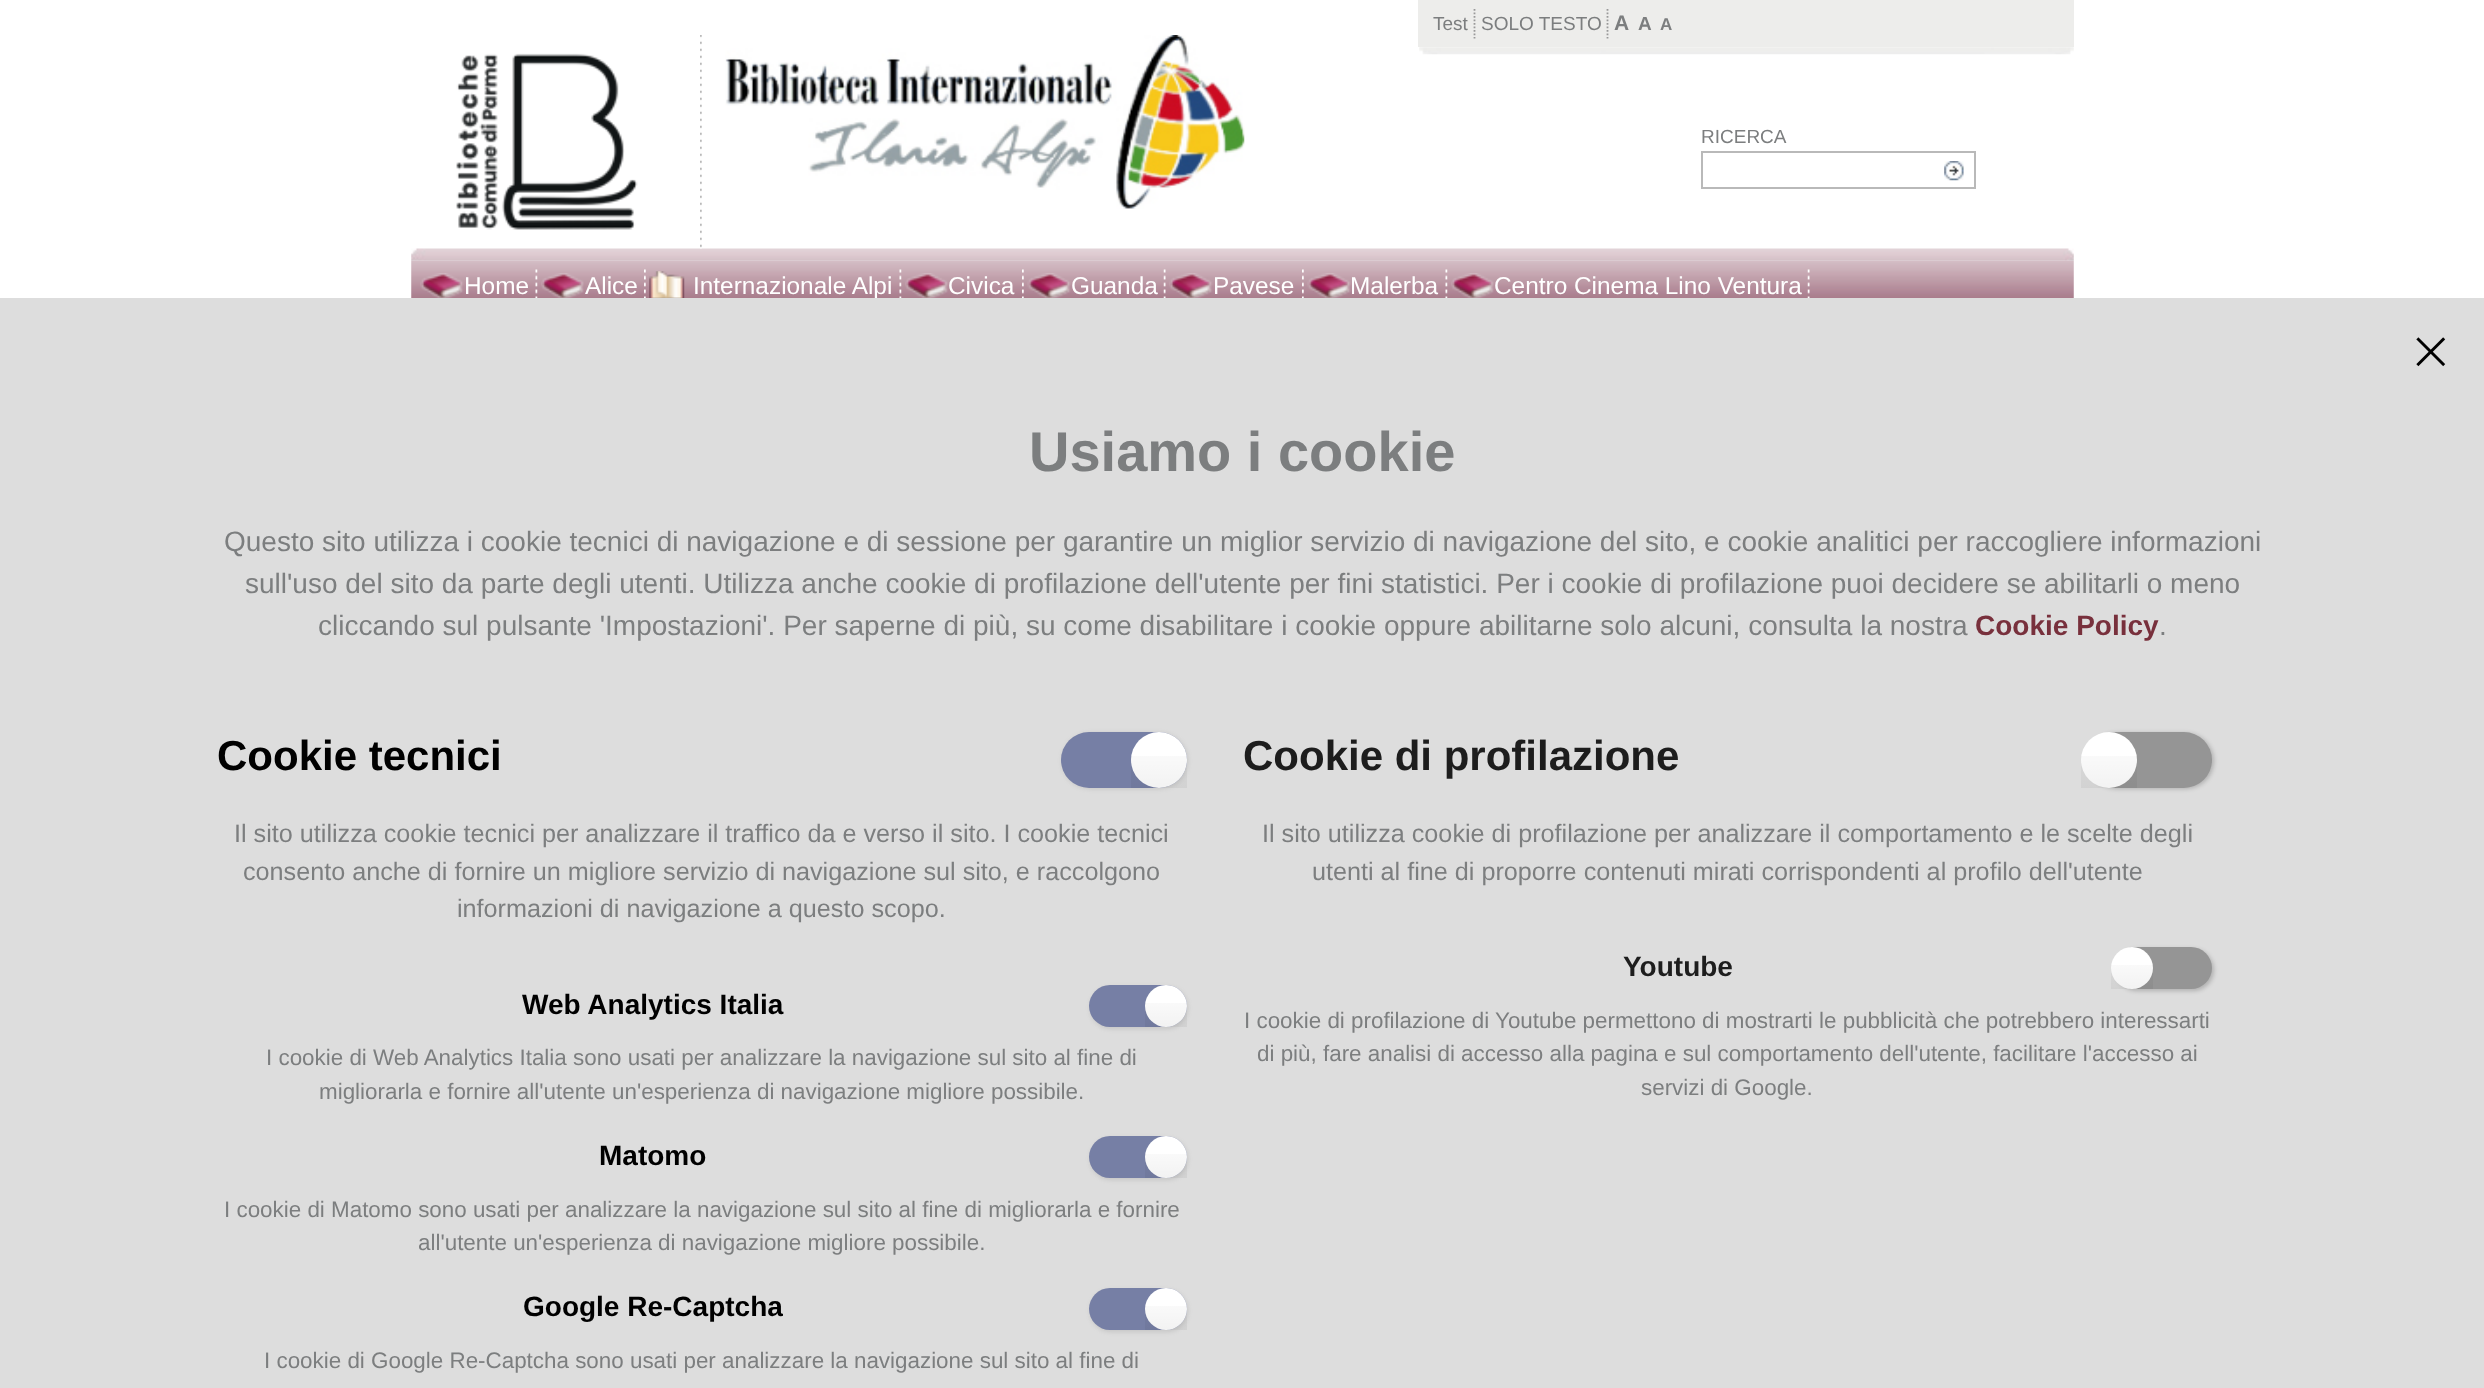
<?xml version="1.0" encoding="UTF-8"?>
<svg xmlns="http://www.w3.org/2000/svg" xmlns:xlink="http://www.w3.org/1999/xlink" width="2484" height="1388">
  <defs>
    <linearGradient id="g1" gradientUnits="userSpaceOnUse" x1="1159" y1="732" x2="1159" y2="788"><stop offset="0" stop-color="#000000" stop-opacity="0" /><stop offset="1" stop-color="#000000" stop-opacity="0.05" /></linearGradient>
    <linearGradient id="g2" gradientUnits="userSpaceOnUse" x1="1166" y1="985" x2="1166" y2="1027"><stop offset="0" stop-color="#000000" stop-opacity="0" /><stop offset="1" stop-color="#000000" stop-opacity="0.05" /></linearGradient>
    <linearGradient id="g3" gradientUnits="userSpaceOnUse" x1="1166" y1="1136" x2="1166" y2="1178"><stop offset="0" stop-color="#000000" stop-opacity="0" /><stop offset="1" stop-color="#000000" stop-opacity="0.05" /></linearGradient>
    <linearGradient id="g4" gradientUnits="userSpaceOnUse" x1="1166" y1="1288" x2="1166" y2="1330"><stop offset="0" stop-color="#000000" stop-opacity="0" /><stop offset="1" stop-color="#000000" stop-opacity="0.05" /></linearGradient>
    <linearGradient id="g5" gradientUnits="userSpaceOnUse" x1="2109" y1="732" x2="2109" y2="788"><stop offset="0" stop-color="#000000" stop-opacity="0" /><stop offset="1" stop-color="#000000" stop-opacity="0.05" /></linearGradient>
    <linearGradient id="g6" gradientUnits="userSpaceOnUse" x1="2132" y1="947" x2="2132" y2="989"><stop offset="0" stop-color="#000000" stop-opacity="0" /><stop offset="1" stop-color="#000000" stop-opacity="0.05" /></linearGradient>
  </defs>
  <rect width="100%" height="100%" fill="#ffffff" />
  <image x="411" y="248" width="1663" height="13" xlink:href="image6.png" />
  <image x="700" y="35" width="2" height="214" xlink:href="image1.png" />
  <image x="456" y="53" width="182" height="177" xlink:href="image2.png" />
  <image x="725" y="35" width="520" height="174" xlink:href="image3.png" />
  <rect x="1418" width="656" height="47" fill="#ededeb" />
  <path d="M 1474.5 9 v 29.5" fill="none" stroke="#999999" stroke-width="1.8" stroke-dasharray="1.75 1.75" />
  <path d="M 1607.5 9 v 29.5" fill="none" stroke="#999999" stroke-width="1.8" stroke-dasharray="1.75 1.75" />
  <image x="1419" y="47" width="655" height="8" xlink:href="image4.png" />
  <rect x="1702" y="152" width="273" height="36" fill="none" stroke="#b9b9b9" stroke-width="2" />
  <image x="1944" y="161" width="20" height="20" xlink:href="image5.png" />
  <image x="411" y="260" width="1663" height="38" xlink:href="image7.png" />
  <image x="535" y="269" width="3" height="29" xlink:href="image8.png" />
  <image x="420" y="273" width="44" height="25" xlink:href="image9.png" />
  <image x="644" y="269" width="2" height="29" xlink:href="image10.png" />
  <image x="541" y="273" width="43" height="25" xlink:href="image11.png" />
  <image x="899" y="269" width="3" height="29" xlink:href="image8.png" />
  <image x="649" y="271" width="36" height="27" xlink:href="image12.png" />
  <image x="1022" y="269" width="2" height="29" xlink:href="image10.png" />
  <image x="905" y="273" width="43" height="25" xlink:href="image13.png" />
  <image x="1163" y="269" width="3" height="29" xlink:href="image14.png" />
  <image x="1027" y="273" width="44" height="25" xlink:href="image15.png" />
  <image x="1302" y="269" width="2" height="29" xlink:href="image10.png" />
  <image x="1169" y="273" width="44" height="25" xlink:href="image9.png" />
  <image x="1445" y="269" width="3" height="29" xlink:href="image8.png" />
  <image x="1307" y="273" width="44" height="25" xlink:href="image15.png" />
  <image x="1807" y="269" width="3" height="29" xlink:href="image14.png" />
  <image x="1451" y="273" width="43" height="25" xlink:href="image13.png" />
  <text x="1433" y="30" style="font-family: Liberation Sans; font-size: 19px; fill: #7c7e7f">Test</text>
  <text x="1481" y="30" style="font-family: Liberation Sans; font-size: 19px; fill: #7c7e7f">SOLO TESTO</text>
  <text x="1614" y="30" style="font-family: Liberation Sans; font-size: 21px; font-weight: bold; fill: #7c7e7f">A</text>
  <text x="1638" y="30" style="font-family: Liberation Sans; font-size: 19px; font-weight: bold; fill: #7c7e7f">A</text>
  <text x="1660" y="30" style="font-family: Liberation Sans; font-size: 17px; font-weight: bold; fill: #7c7e7f">A</text>
  <text x="1701" y="143" style="font-family: Liberation Sans; font-size: 19px; fill: #7c7e7f">RICERCA</text>
  <text x="464" y="294" style="font-family: Liberation Sans; font-size: 24.4px; fill: #ffffff">Home</text>
  <text x="585" y="294" style="font-family: Liberation Sans; font-size: 24.4px; fill: #ffffff">Alice</text>
  <text x="693" y="294" style="font-family: Liberation Sans; font-size: 24.4px; fill: #ffffff">Internazionale Alpi</text>
  <text x="948" y="294" style="font-family: Liberation Sans; font-size: 24.4px; fill: #ffffff">Civica</text>
  <text x="1071" y="294" style="font-family: Liberation Sans; font-size: 24.4px; fill: #ffffff">Guanda</text>
  <text x="1213" y="294" style="font-family: Liberation Sans; font-size: 24.4px; fill: #ffffff">Pavese</text>
  <text x="1350" y="294" style="font-family: Liberation Sans; font-size: 24.4px; fill: #ffffff">Malerba</text>
  <text x="1494" y="294" style="font-family: Liberation Sans; font-size: 24.4px; fill: #ffffff">Centro Cinema Lino Ventura</text>
  <rect y="298" width="2484" height="1090" fill="#dddddd" />
  <image x="2416" y="337" width="30" height="30" xlink:href="image16.png" />
  <text x="1029" y="471" style="font-family: Liberation Sans; font-size: 56px; font-weight: bold; fill: #7c7e7f">Usiamo i cookie</text>
  <text x="224" y="551" style="font-family: Liberation Sans; font-size: 28px; fill: #7c7e7f">Questo sito utilizza i cookie tecnici di navigazione e di sessione per garantire un miglior servizio di navigazione del sito, e cookie analitici per raccogliere informazioni</text>
  <text x="245" y="593" style="font-family: Liberation Sans; font-size: 28px; fill: #7c7e7f">sull'uso del sito da parte degli utenti. Utilizza anche cookie di profilazione dell'utente per fini statistici. Per i cookie di profilazione puoi decidere se abilitarli o meno</text>
  <text x="318" y="635" style="font-family: Liberation Sans; font-size: 28px; fill: #7c7e7f">cliccando sul pulsante 'Impostazioni'. Per saperne di più, su come disabilitare i cookie oppure abilitarne solo alcuni, consulta la nostra</text>
  <text x="1975" y="635" style="font-family: Liberation Sans; font-size: 28px; font-weight: bold; fill: #78303c">Cookie Policy</text>
  <text x="2159" y="635" style="font-family: Liberation Sans; font-size: 28px; fill: #7c7e7f">.</text>
  <rect x="1062" y="733" width="126" height="56" rx="28" fill="#6f6f6f" fill-opacity="0.2" filter="blur(2px)" />
  <rect x="1061" y="732" width="126" height="56" rx="28" fill="#767fa5" />
  <text x="217" y="770" style="font-family: Liberation Sans; font-size: 42px; font-weight: bold; fill: #000000">Cookie tecnici</text>
  <circle cx="1159" cy="760" r="28" fill="#ffffff" />
  <rect x="1131" y="756" width="56" height="32" fill="url(#g1)" />
  <text x="234" y="842" style="font-family: Liberation Sans; font-size: 25.2px; fill: #7c7e7f">Il sito utilizza cookie tecnici per analizzare il traffico da e verso il sito. I cookie tecnici</text>
  <text x="243" y="880" style="font-family: Liberation Sans; font-size: 25.2px; fill: #7c7e7f">consento anche di fornire un migliore servizio di navigazione sul sito, e raccolgono</text>
  <text x="457" y="917" style="font-family: Liberation Sans; font-size: 25.2px; fill: #7c7e7f">informazioni di navigazione a questo scopo.</text>
  <rect x="1090" y="987" width="98" height="42" rx="21" fill="#6f6f6f" fill-opacity="0.2" filter="blur(2px)" />
  <rect x="1089" y="985" width="98" height="42" rx="21" fill="#767fa5" />
  <text x="522" y="1014" style="font-family: Liberation Sans; font-size: 28px; font-weight: bold; fill: #000000">Web Analytics Italia</text>
  <circle cx="1166" cy="1006" r="21" fill="#ffffff" />
  <rect x="1145" y="1003" width="42" height="24" fill="url(#g2)" />
  <text x="266" y="1065" style="font-family: Liberation Sans; font-size: 22.4px; fill: #7c7e7f">I cookie di Web Analytics Italia sono usati per analizzare la navigazione sul sito al fine di</text>
  <text x="319" y="1099" style="font-family: Liberation Sans; font-size: 22.4px; fill: #7c7e7f">migliorarla e fornire all'utente un'esperienza di navigazione migliore possibile.</text>
  <rect x="1090" y="1138" width="98" height="42" rx="21" fill="#6f6f6f" fill-opacity="0.2" filter="blur(2px)" />
  <rect x="1089" y="1136" width="98" height="42" rx="21" fill="#767fa5" />
  <text x="599" y="1165" style="font-family: Liberation Sans; font-size: 28px; font-weight: bold; fill: #000000">Matomo</text>
  <circle cx="1166" cy="1157" r="21" fill="#ffffff" />
  <rect x="1145" y="1154" width="42" height="24" fill="url(#g3)" />
  <text x="224" y="1217" style="font-family: Liberation Sans; font-size: 22.4px; fill: #7c7e7f">I cookie di Matomo sono usati per analizzare la navigazione sul sito al fine di migliorarla e fornire</text>
  <text x="418" y="1250" style="font-family: Liberation Sans; font-size: 22.4px; fill: #7c7e7f">all'utente un'esperienza di navigazione migliore possibile.</text>
  <rect x="1090" y="1290" width="98" height="42" rx="21" fill="#6f6f6f" fill-opacity="0.2" filter="blur(2px)" />
  <rect x="1089" y="1288" width="98" height="42" rx="21" fill="#767fa5" />
  <text x="523" y="1316" style="font-family: Liberation Sans; font-size: 28px; font-weight: bold; fill: #000000">Google Re-Captcha</text>
  <circle cx="1166" cy="1309" r="21" fill="#ffffff" />
  <rect x="1145" y="1306" width="42" height="24" fill="url(#g4)" />
  <text x="264" y="1368" style="font-family: Liberation Sans; font-size: 22.4px; fill: #7c7e7f">I cookie di Google Re-Captcha sono usati per analizzare la navigazione sul sito al fine di</text>
  <rect x="2088" y="733" width="126" height="56" rx="28" fill="#000000" fill-opacity="0.2" filter="blur(2px)" />
  <rect x="2086" y="732" width="126" height="56" rx="28" fill="#959595" />
  <text x="1243" y="770" style="font-family: Liberation Sans; font-size: 42px; font-weight: bold; fill: #1d1d1d">Cookie di profilazione</text>
  <circle cx="2109" cy="760" r="28" fill="#ffffff" />
  <rect x="2081" y="756" width="56" height="32" fill="url(#g5)" />
  <text x="1262" y="842" style="font-family: Liberation Sans; font-size: 25.2px; fill: #7c7e7f">Il sito utilizza cookie di profilazione per analizzare il comportamento e le scelte degli</text>
  <text x="1312" y="880" style="font-family: Liberation Sans; font-size: 25.2px; fill: #7c7e7f">utenti al fine di proporre contenuti mirati corrispondenti al profilo dell'utente</text>
  <rect x="2116" y="949" width="98" height="42" rx="21" fill="#000000" fill-opacity="0.2" filter="blur(2px)" />
  <rect x="2114" y="947" width="98" height="42" rx="21" fill="#959595" />
  <text x="1623" y="976" style="font-family: Liberation Sans; font-size: 28px; font-weight: bold; fill: #1d1d1d">Youtube</text>
  <circle cx="2132" cy="968" r="21" fill="#ffffff" />
  <rect x="2111" y="965" width="42" height="24" fill="url(#g6)" />
  <text x="1244" y="1028" style="font-family: Liberation Sans; font-size: 22.4px; fill: #7c7e7f">I cookie di profilazione di Youtube permettono di mostrarti le pubblicità che potrebbero interessarti</text>
  <text x="1257" y="1061" style="font-family: Liberation Sans; font-size: 22.4px; fill: #7c7e7f">di più, fare analisi di accesso alla pagina e sul comportamento dell'utente, facilitare l'accesso ai</text>
  <text x="1641" y="1095" style="font-family: Liberation Sans; font-size: 22.4px; fill: #7c7e7f">servizi di Google.</text>
</svg>
